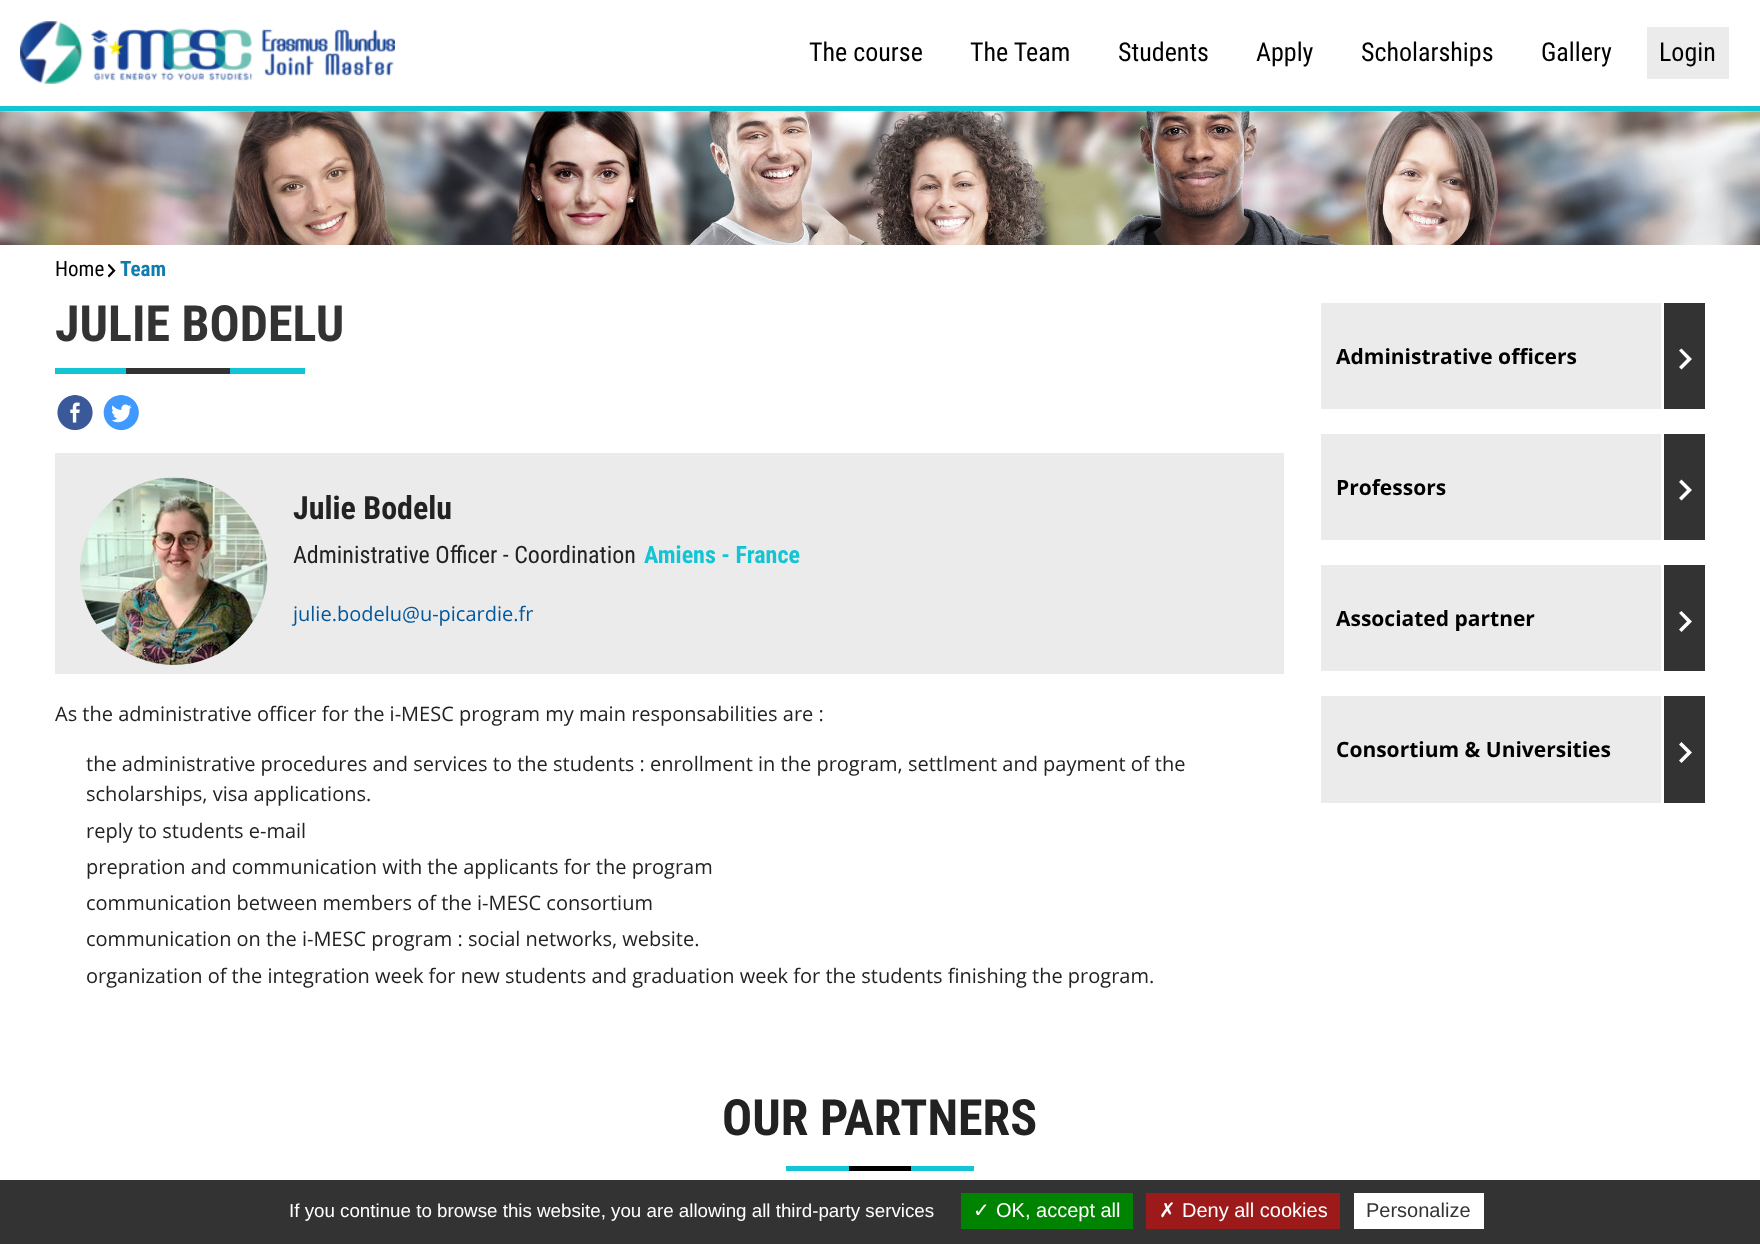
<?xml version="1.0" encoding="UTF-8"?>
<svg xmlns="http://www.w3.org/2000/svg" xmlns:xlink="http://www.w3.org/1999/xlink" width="1760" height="1244">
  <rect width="100%" height="100%" fill="#ffffff" />
  <rect y="106" width="1760" height="5" fill="#13c4d4" />
  <image x="20" y="21" width="375" height="63" xlink:href="image1.png" />
  <rect x="1647" y="27" width="82" height="52" fill="#ebebeb" />
  <image x="0" y="111" width="1760" height="134" xlink:href="image2.png" />
  <image x="108" y="264" width="8" height="14" xlink:href="image3.png" />
  <rect x="55" y="368" width="250" height="6" fill="#13c4d4" />
  <rect x="126" y="368" width="104" height="6" fill="#333333" />
  <image x="57" y="395" width="36" height="37" xlink:href="image4.png" />
  <image x="103" y="395" width="36" height="37" xlink:href="image5.png" />
  <rect x="55" y="453" width="1229" height="221" fill="#ebebeb" />
  <image x="80" y="477" width="188" height="188" xlink:href="image6.png" />
  <rect x="1321" y="303" width="340" height="106" fill="#ebebeb" />
  <rect x="1664" y="303" width="41" height="106" fill="#333333" />
  <path d="M 1681.5 369.5 l 10.5 -10.5 l -10.5 -10.5 l -2.5 2 l 8 8.5 l -8 8 z" fill="#ffffff" />
  <rect x="1321" y="434" width="340" height="106" fill="#ebebeb" />
  <rect x="1664" y="434" width="41" height="106" fill="#333333" />
  <path d="M 1681.5 500.5 l 10.5 -10.5 l -10.5 -10.5 l -2.5 2.5 l 8 8 l -8 8 z" fill="#ffffff" />
  <rect x="1321" y="565" width="340" height="106" fill="#ebebeb" />
  <rect x="1664" y="565" width="41" height="106" fill="#333333" />
  <path d="M 1681.5 632 l 10.5 -10.5 l -10.5 -10.5 l -2.5 2 l 8 8.5 l -8 8 z" fill="#ffffff" />
  <rect x="1321" y="696" width="340" height="107" fill="#ebebeb" />
  <rect x="1664" y="696" width="41" height="107" fill="#333333" />
  <path d="M 1681.5 763 l 10.5 -10.5 l -10.5 -10.5 l -2.5 2.5 l 8 8 l -8 8 z" fill="#ffffff" />
  <rect x="786" y="1166" width="188" height="5" fill="#13c4d4" />
  <rect x="849" y="1166" width="62" height="5" fill="#000000" />
  <rect y="1180" width="1760" height="64" fill="#333333" />
  <rect x="961" y="1193" width="172" height="36" fill="#008300" />
  <rect x="1146" y="1193" width="194" height="36" fill="#9c1a1a" />
  <rect x="1354" y="1193" width="130" height="36" fill="#ffffff" />
  <text x="809" y="61" style="font-family: Roboto Condensed; font-size: 26px; fill: #000000">The course</text>
  <text x="970" y="61" style="font-family: Roboto Condensed; font-size: 26px; fill: #000000">The Team</text>
  <text x="1118" y="61" style="font-family: Roboto Condensed; font-size: 26px; fill: #000000">Students</text>
  <text x="1256" y="61" style="font-family: Roboto Condensed; font-size: 26px; fill: #000000">Apply</text>
  <text x="1361" y="61" style="font-family: Roboto Condensed; font-size: 26px; fill: #000000">Scholarships</text>
  <text x="1541" y="61" style="font-family: Roboto Condensed; font-size: 26px; fill: #000000">Gallery</text>
  <text x="1659" y="61" style="font-family: Roboto Condensed; font-size: 26px; fill: #000000">Login</text>
  <text x="55" y="276" style="font-family: Roboto Condensed; font-size: 21px; fill: #000000">Home</text>
  <text x="120" y="276" style="font-family: Roboto Condensed; font-size: 21px; font-weight: bold; fill: #0f7eae">Team</text>
  <text x="55" y="341" style="font-family: Roboto Condensed; font-size: 50px; font-weight: bold; fill: #333333">JULIE BODELU</text>
  <text x="293" y="519" style="font-family: Roboto Condensed; font-size: 32px; font-weight: bold; fill: #222222">Julie Bodelu</text>
  <text x="293" y="563" style="font-family: Roboto Condensed; font-size: 24px; fill: #222222">Administrative Officer - Coordination</text>
  <text x="644" y="563" style="font-family: Roboto Condensed; font-size: 24px; font-weight: bold; fill: #13c4d4">Amiens - France</text>
  <text x="293" y="621" style="font-family: Open Sans; font-size: 20px; fill: #00579c">julie.bodelu@u-picardie.fr</text>
  <text x="55" y="721" style="font-family: Open Sans; font-size: 20px; fill: #222222">As the administrative officer for the i-MESC program my main responsabilities are :</text>
  <text x="86" y="771" style="font-family: Open Sans; font-size: 20px; fill: #222222">the administrative procedures and services to the students : enrollment in the program, settlment and payment of the</text>
  <text x="86" y="801" style="font-family: Open Sans; font-size: 20px; fill: #222222">scholarships, visa applications.</text>
  <text x="86" y="838" style="font-family: Open Sans; font-size: 20px; fill: #222222">reply to students e-mail</text>
  <text x="86" y="874" style="font-family: Open Sans; font-size: 20px; fill: #222222">prepration and communication with the applicants for the program</text>
  <text x="86" y="910" style="font-family: Open Sans; font-size: 20px; fill: #222222">communication between members of the i-MESC consortium</text>
  <text x="86" y="946" style="font-family: Open Sans; font-size: 20px; fill: #222222">communication on the i-MESC program : social networks, website.</text>
  <text x="86" y="983" style="font-family: Open Sans; font-size: 20px; fill: #222222">organization of the integration week for new students and graduation week for the students finishing the program.</text>
  <text x="1336" y="364" style="font-family: Open Sans; font-size: 21px; font-weight: bold; fill: #000000">Administrative officers</text>
  <text x="1336" y="495" style="font-family: Open Sans; font-size: 21px; font-weight: bold; fill: #000000">Professors</text>
  <text x="1336" y="626" style="font-family: Open Sans; font-size: 21px; font-weight: bold; fill: #000000">Associated partner</text>
  <text x="1336" y="757" style="font-family: Open Sans; font-size: 21px; font-weight: bold; fill: #000000">Consortium &amp; Universities</text>
  <text x="722" y="1135" style="font-family: Roboto Condensed; font-size: 50px; font-weight: bold; fill: #222222">OUR PARTNERS</text>
  <text x="289" y="1217" style="font-family: Liberation Sans; font-size: 18.75px; fill: #ffffff">If you continue to browse this website, you are allowing all third-party services</text>
  <text x="973" y="1217" style="font-family: DejaVu Sans; font-size: 20px; fill: #ffffff">✓</text>
  <text x="996" y="1217" style="font-family: Liberation Sans; font-size: 20px; fill: #ffffff">OK, accept all</text>
  <text x="1159" y="1217" style="font-family: DejaVu Sans; font-size: 20px; fill: #ffffff">✗</text>
  <text x="1182" y="1217" style="font-family: Liberation Sans; font-size: 20px; fill: #ffffff">Deny all cookies</text>
  <text x="1366" y="1217" style="font-family: Liberation Sans; font-size: 20px; fill: #333333">Personalize</text>
</svg>
